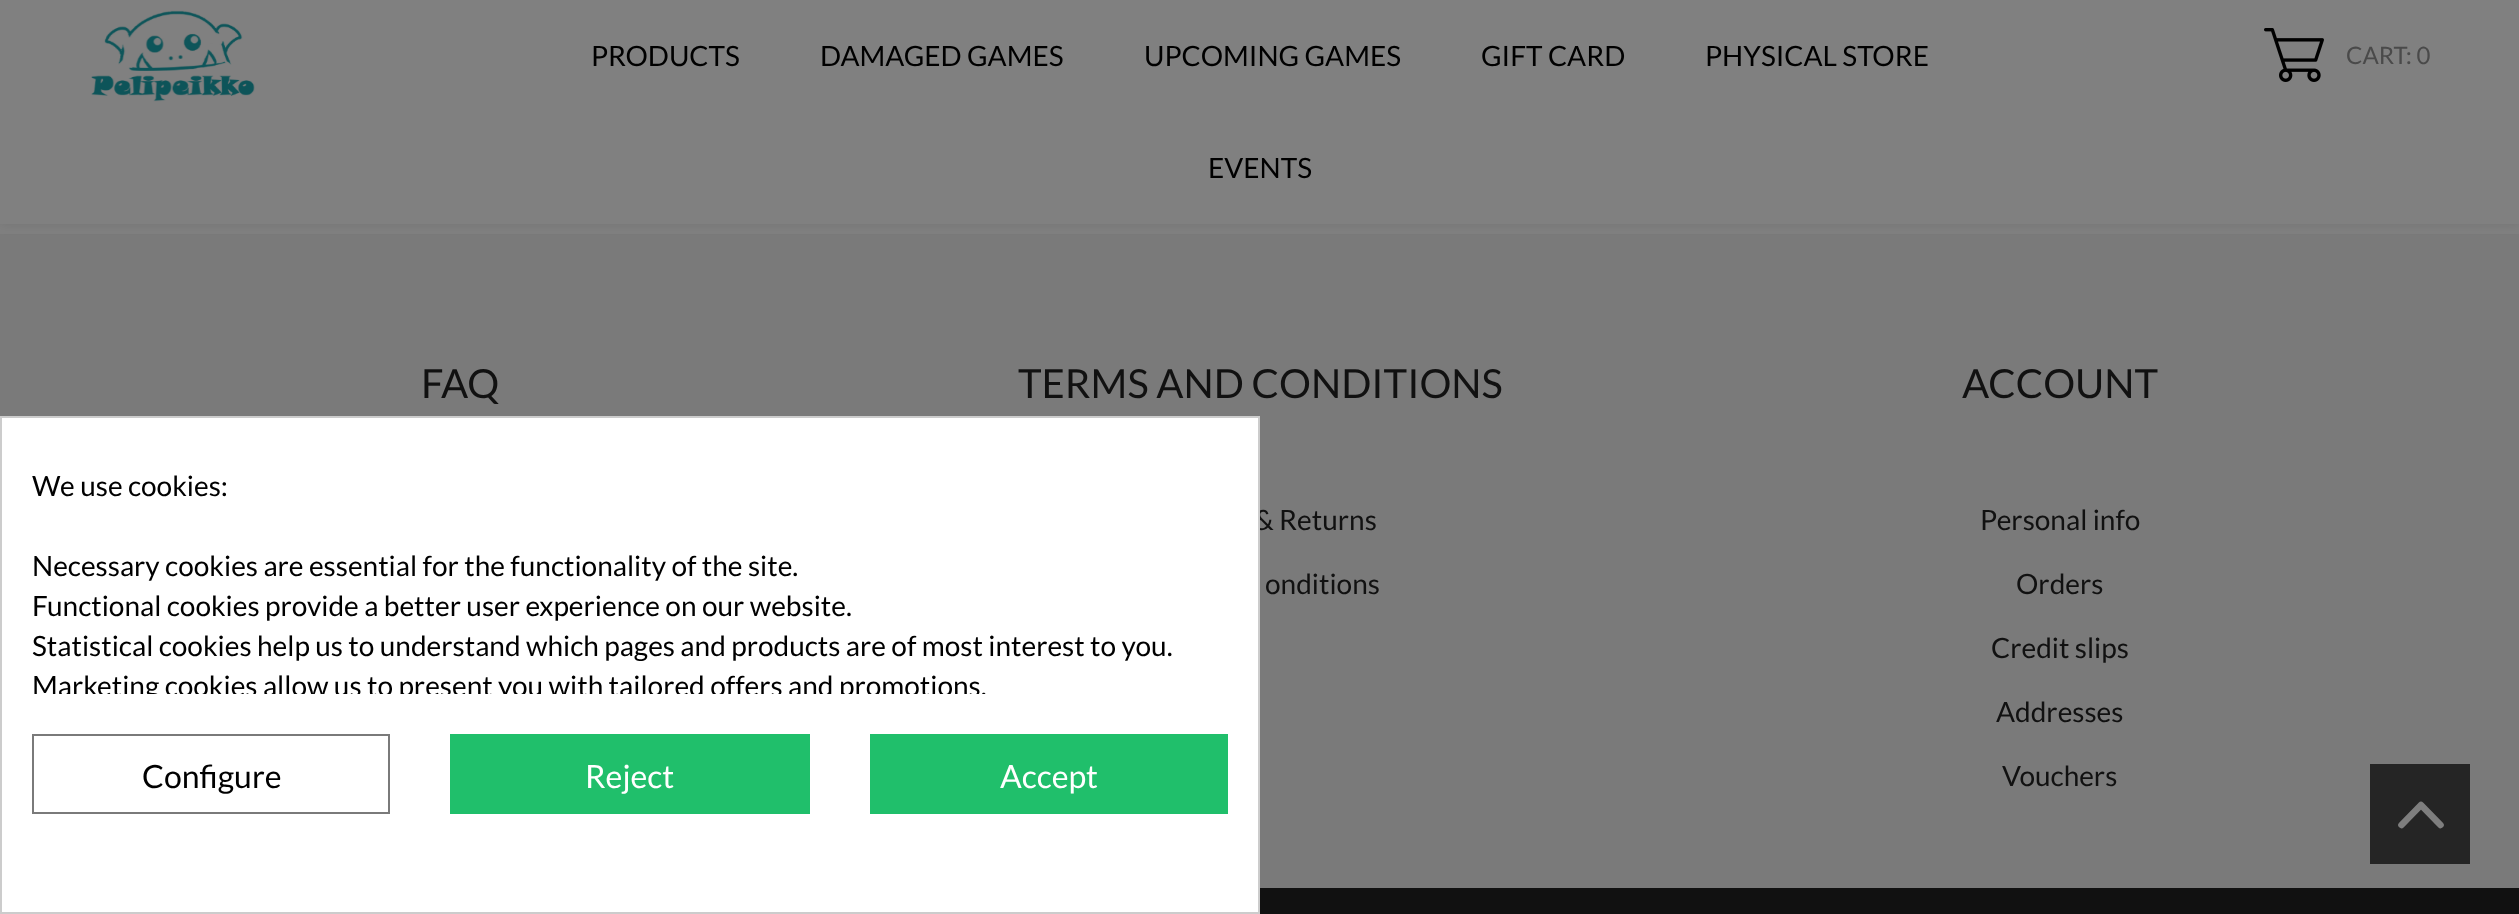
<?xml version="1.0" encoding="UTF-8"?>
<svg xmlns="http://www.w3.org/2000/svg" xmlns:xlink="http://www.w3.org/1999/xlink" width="2519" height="914">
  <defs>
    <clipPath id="clip1"><rect x="32" y="466" width="1196" height="228" /></clipPath>
  </defs>
  <rect width="100%" height="100%" fill="#808080" />
  <rect y="234" width="2519" height="654" fill="#7a7a7a" />
  <rect width="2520" height="224" fill="#010101" fill-opacity="0.1" filter="blur(6px)" />
  <rect width="2519" height="224" fill="#808080" />
  <image x="91" y="10" width="164" height="92" xlink:href="image1.png" />
  <image x="2264" y="28" width="60" height="54" xlink:href="image2.png" />
  <rect x="2370" y="764" width="100" height="100" fill="#252525" />
  <path d="M 2401.5 825 l 19.5 -20 l 19.5 20" fill="none" stroke="#7e7e7e" stroke-width="6.6" stroke-linecap="round" stroke-linejoin="round" />
  <rect x="1260" y="888" width="1259" height="26" fill="#111111" />
  <text x="591" y="66" style="font-family: Lato; font-size: 28px; fill: #000000">PRODUCTS</text>
  <text x="820" y="66" style="font-family: Lato; font-size: 28px; fill: #000000">DAMAGED GAMES</text>
  <text x="1144" y="66" style="font-family: Lato; font-size: 28px; fill: #000000">UPCOMING GAMES</text>
  <text x="1481" y="66" style="font-family: Lato; font-size: 28px; fill: #000000">GIFT CARD</text>
  <text x="1705" y="66" style="font-family: Lato; font-size: 28px; fill: #000000">PHYSICAL STORE</text>
  <text x="1208" y="178" style="font-family: Lato; font-size: 28px; fill: #000000">EVENTS</text>
  <text x="2346" y="64" style="font-family: Lato; font-size: 24px; fill: #4a4a4a">CART: 0</text>
  <text x="421" y="398" style="font-family: Lato; font-size: 40px; fill: #111111">FAQ</text>
  <text x="1018" y="398" style="font-family: Lato; font-size: 40px; fill: #111111">TERMS AND CONDITIONS</text>
  <text x="1254" y="530" style="font-family: Lato; font-size: 28px; fill: #111111">&amp; Returns</text>
  <text x="1265" y="594" style="font-family: Lato; font-size: 28px; fill: #111111">onditions</text>
  <text x="1962" y="398" style="font-family: Lato; font-size: 40px; fill: #111111">ACCOUNT</text>
  <text x="1980" y="530" style="font-family: Lato; font-size: 28px; fill: #111111">Personal info</text>
  <text x="2016" y="594" style="font-family: Lato; font-size: 28px; fill: #111111">Orders</text>
  <text x="1991" y="658" style="font-family: Lato; font-size: 28px; fill: #111111">Credit slips</text>
  <text x="1996" y="722" style="font-family: Lato; font-size: 28px; fill: #111111">Addresses</text>
  <text x="2002" y="786" style="font-family: Lato; font-size: 28px; fill: #111111">Vouchers</text>
  <rect x="1" y="417" width="1258" height="496" fill="#ffffff" stroke="#cccccc" stroke-width="2" />
  <text x="32" y="496" style="font-family: Lato; font-size: 28px; fill: #000000">We use cookies:</text>
  <text x="32" y="576" style="font-family: Lato; font-size: 28px; fill: #000000">Necessary cookies are essential for the functionality of the site.</text>
  <text x="32" y="616" style="font-family: Lato; font-size: 28px; fill: #000000">Functional cookies provide a better user experience on our website.</text>
  <text x="32" y="656" style="font-family: Lato; font-size: 28px; fill: #000000">Statistical cookies help us to understand which pages and products are of most interest to you.</text>
  <g clip-path="url(#clip1)">
    <text x="32" y="696" style="font-family: Lato; font-size: 28px; fill: #000000">Marketing cookies allow us to present you with tailored offers and promotions.</text>
  </g>
  <rect x="33" y="735" width="356" height="78" fill="none" stroke="#7a7a7a" stroke-width="2" />
  <text x="142" y="788" style="font-family: Lato; font-size: 32px; fill: #000000">Configure</text>
  <rect x="450" y="734" width="360" height="80" fill="#20bf6b" />
  <text x="585" y="788" style="font-family: Lato; font-size: 32px; fill: #ffffff">Reject</text>
  <rect x="870" y="734" width="358" height="80" fill="#20bf6b" />
  <text x="1000" y="788" style="font-family: Lato; font-size: 32px; fill: #ffffff">Accept</text>
</svg>
